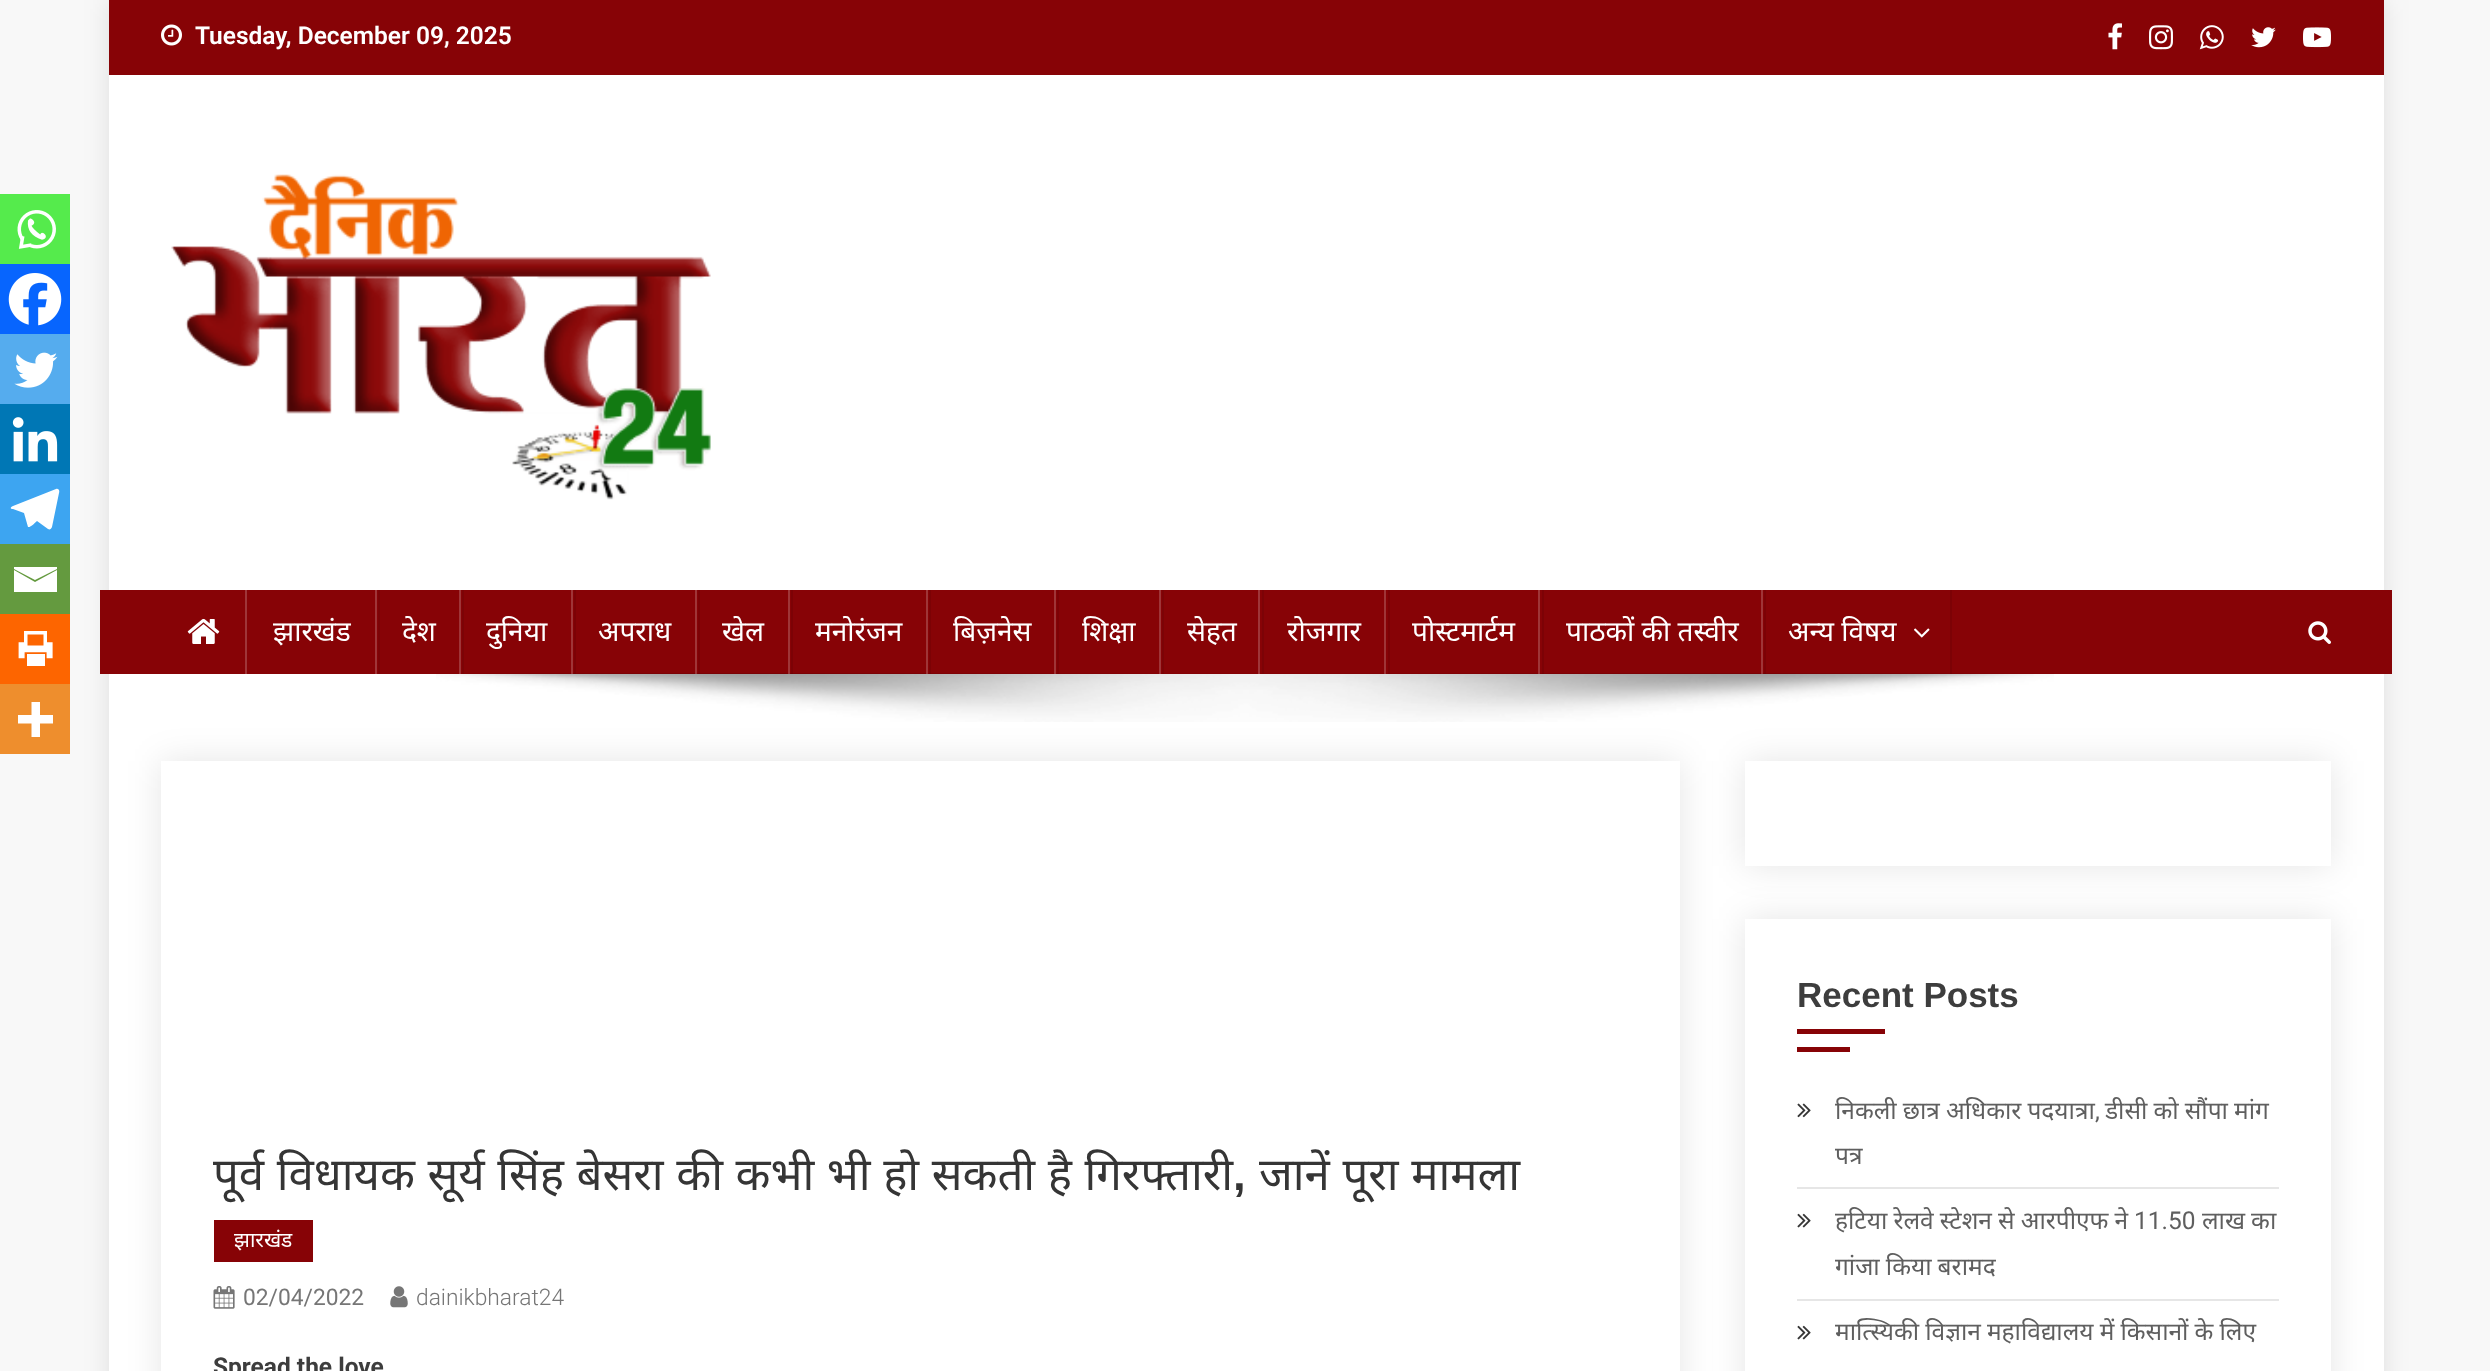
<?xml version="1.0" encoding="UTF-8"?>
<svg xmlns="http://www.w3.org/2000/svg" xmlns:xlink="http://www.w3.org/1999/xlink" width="2490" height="1371">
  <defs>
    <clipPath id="clip1"><path d="M 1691 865 h 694 v 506 h -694 z m 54 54 h 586 v 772 h -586 z" clip-rule="evenodd" /></clipPath>
  </defs>
  <rect width="100%" height="100%" fill="#f8f8f8" />
  <rect x="109" width="2275" height="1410" fill="#000000" fill-opacity="0.1" filter="blur(13px)" />
  <rect x="109" y="75" width="2275" height="1296" fill="#ffffff" />
  <rect x="109" width="2275" height="75" fill="#870306" />
  <image x="161" y="24" width="21" height="22" xlink:href="image1.png" />
  <image x="2108" y="23" width="14" height="27" xlink:href="image2.png" />
  <image x="2149" y="25" width="24" height="25" xlink:href="image3.png" />
  <image x="2199" y="25" width="25" height="25" xlink:href="image4.png" />
  <image x="2251" y="27" width="25" height="21" xlink:href="image5.png" />
  <image x="2303" y="27" width="28" height="21" xlink:href="image6.png" />
  <image x="171" y="174" width="540" height="326" xlink:href="image7.png" />
  <rect x="100" y="590" width="2292" height="84" fill="#870306" />
  <rect x="1159" y="590" width="2" height="84" fill="#9f3538" />
  <rect x="1162" y="590" width="2" height="84" fill="#7c0306" />
  <image x="187" y="618" width="33" height="26" xlink:href="image8.png" />
  <rect x="378" y="590" width="2" height="84" fill="#7c0306" />
  <rect x="245" y="590" width="2" height="84" fill="#9f3538" />
  <rect x="161" y="761" width="1519" height="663" fill="#000000" fill-opacity="0.1" filter="blur(17.5px)" />
  <rect x="1745" y="761" width="586" height="105" fill="#000000" fill-opacity="0.1" filter="blur(17.5px)" />
  <image x="436" y="673" width="1618" height="49" xlink:href="image11.png" />
  <rect x="462" y="590" width="2" height="84" fill="#7c0306" />
  <rect x="375" y="590" width="2" height="84" fill="#9f3538" />
  <rect x="574" y="590" width="2" height="84" fill="#000000" fill-opacity="0.08" />
  <rect x="459" y="590" width="2" height="84" fill="#9f3538" />
  <rect x="698" y="590" width="2" height="84" fill="#000000" fill-opacity="0.08" />
  <rect x="571" y="590" width="2" height="84" fill="#ffffff" fill-opacity="0.2" />
  <rect x="791" y="590" width="2" height="84" fill="#000000" fill-opacity="0.08" />
  <rect x="695" y="590" width="2" height="84" fill="#ffffff" fill-opacity="0.2" />
  <rect x="929" y="590" width="2" height="84" fill="#000000" fill-opacity="0.08" />
  <rect x="788" y="590" width="2" height="84" fill="#ffffff" fill-opacity="0.2" />
  <rect x="1057" y="590" width="2" height="84" fill="#000000" fill-opacity="0.08" />
  <rect x="926" y="590" width="2" height="84" fill="#ffffff" fill-opacity="0.2" />
  <rect x="1054" y="590" width="2" height="84" fill="#ffffff" fill-opacity="0.2" />
  <rect x="1262" y="590" width="2" height="84" fill="#7c0306" />
  <rect x="1388" y="590" width="2" height="84" fill="#000000" fill-opacity="0.08" />
  <rect x="1258" y="590" width="2" height="84" fill="#9f3538" />
  <rect x="1542" y="590" width="2" height="84" fill="#000000" fill-opacity="0.08" />
  <rect x="1384" y="590" width="2" height="84" fill="#ffffff" fill-opacity="0.2" />
  <rect x="1764" y="590" width="2" height="84" fill="#000000" fill-opacity="0.08" />
  <rect x="1538" y="590" width="2" height="84" fill="#ffffff" fill-opacity="0.2" />
  <rect x="1950" y="590" width="2" height="84" fill="#000000" fill-opacity="0.08" />
  <rect x="1761" y="590" width="2" height="84" fill="#ffffff" fill-opacity="0.2" />
  <image x="1914" y="628" width="16" height="10" xlink:href="image9.png" />
  <image x="2308" y="621" width="23" height="23" xlink:href="image10.png" />
  <rect x="161" y="761" width="1519" height="610" fill="#ffffff" />
  <rect x="214" y="1220" width="99" height="42" fill="#870306" />
  <image x="213" y="1286" width="22" height="23" xlink:href="image12.png" />
  <image x="390" y="1286" width="18" height="22" xlink:href="image13.png" />
  <rect y="194" width="70" height="70" fill="#55eb4c" />
  <image x="17" y="210" width="39" height="39" xlink:href="image14.png" />
  <rect y="264" width="70" height="70" fill="#0765fe" />
  <image x="8" y="273" width="54" height="53" xlink:href="image15.png" />
  <rect y="334" width="70" height="70" fill="#55acee" />
  <image x="14" y="352" width="44" height="36" xlink:href="image16.png" />
  <rect y="404" width="70" height="70" fill="#0077b5" />
  <image x="12" y="417" width="46" height="45" xlink:href="image17.png" />
  <rect y="474" width="70" height="70" fill="#3da5f1" />
  <path d="M 56 489 l -43 17 c -3 1 -3 3 0 3 l 11 4 l 4 14 c 2 1 8 -5 9 -6 l 11 8 c 2 1 3 0 4 -2 l 7 -34 c 1 -3 -1 -5 -3 -4 z" fill="#ffffff" />
  <rect y="544" width="70" height="70" fill="#649a3f" />
  <path d="M 12 567 h 45 v 2 l -22 11 l -21 -11 v -2 m 0 3 l 21 12 l 22 -12 v 22 h -43 v -22" fill="#ffffff" />
  <rect y="614" width="70" height="70" fill="#fd6500" />
  <image x="18" y="631" width="35" height="35" xlink:href="image18.png" />
  <rect y="684" width="70" height="70" fill="#ee8e2d" />
  <path d="M 40 715 v -13 h -8.5 v 13 h -13.5 v 8.5 h 13.5 v 13.5 h 8.5 v -13.5 h 13 v -8.5 z" fill="#ffffff" fill-rule="evenodd" />
  <rect x="1745" y="761" width="586" height="105" fill="#ffffff" />
  <g clip-path="url(#clip1)">
    <rect x="1745" y="919" width="586" height="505" fill="#000000" fill-opacity="0.1" filter="blur(17.5px)" />
  </g>
  <rect x="1797" y="1029" width="88" height="5" fill="#870306" />
  <rect x="1797" y="1047" width="53" height="5" fill="#870306" />
  <rect x="1797" y="1187" width="482" height="2" fill="#e6e6e6" />
  <image x="1797" y="1103" width="14" height="15" xlink:href="image19.png" />
  <rect x="1797" y="1299" width="482" height="2" fill="#e6e6e6" />
  <image x="1797" y="1213" width="14" height="15" xlink:href="image20.png" />
  <image x="1797" y="1325" width="14" height="15" xlink:href="image20.png" />
  <text x="195" y="44" style="font-family: Roboto; font-size: 24.5px; font-weight: 600; fill: #ffffff">Tuesday, December 09, 2025</text>
  <text x="273" y="641" style="font-family: Noto Sans; font-size: 28px; fill: #ffffff">झारखंड</text>
  <text x="402" y="641" style="font-family: Noto Sans; font-size: 28px; fill: #ffffff">देश</text>
  <text x="486" y="641" style="font-family: Noto Sans; font-size: 28px; fill: #ffffff">दुनिया</text>
  <text x="598" y="641" style="font-family: Noto Sans; font-size: 28px; fill: #ffffff">अपराध</text>
  <text x="722" y="641" style="font-family: Noto Sans; font-size: 28px; fill: #ffffff">खेल</text>
  <text x="815" y="641" style="font-family: Noto Sans; font-size: 28px; fill: #ffffff">मनोरंजन</text>
  <text x="953" y="641" style="font-family: Noto Sans; font-size: 28px; fill: #ffffff">बिज़नेस</text>
  <text x="1082" y="641" style="font-family: Noto Sans; font-size: 28px; fill: #ffffff">शिक्षा</text>
  <text x="1187" y="641" style="font-family: Noto Sans; font-size: 28px; fill: #ffffff">सेहत</text>
  <text x="1287" y="641" style="font-family: Noto Sans; font-size: 28px; fill: #ffffff">रोजगार</text>
  <text x="1412" y="641" style="font-family: Noto Sans; font-size: 28px; fill: #ffffff">पोस्टमार्टम</text>
  <text x="1566" y="641" style="font-family: Noto Sans; font-size: 28px; fill: #ffffff">पाठकों की तस्वीर</text>
  <text x="1788" y="641" style="font-family: Noto Sans; font-size: 28px; fill: #ffffff">अन्य विषय</text>
  <text x="213" y="1190" word-spacing="0.75" style="font-family: Noto Sans; font-size: 45.5px; fill: #353535">पूर्व विधायक सूर्य सिंह बेसरा की कभी भी हो सकती है गिरफ्तारी</text>
  <text x="1233" y="1190" style="font-family: Liberation Sans; font-size: 45.5px; font-weight: bold; fill: #353535">,</text>
  <text x="1259" y="1190" word-spacing="0.75" style="font-family: Noto Sans; font-size: 45.5px; fill: #353535">जानें पूरा मामला</text>
  <text x="234" y="1247" style="font-family: Noto Sans; font-size: 21px; fill: #ffffff">झारखंड</text>
  <text x="243" y="1305" style="font-family: Roboto; font-size: 22.75px; fill: #767676">02/04/2022</text>
  <text x="416" y="1305" style="font-family: Roboto; font-size: 22.75px; font-weight: 300; fill: #767676">dainikbharat24</text>
  <text x="213" y="1375" style="font-family: Roboto; font-size: 24.5px; font-weight: bold; fill: #3d3d3d">Spread the love</text>
  <text x="1797" y="1007" style="font-family: Liberation Sans; font-size: 35px; font-weight: bold; fill: #3d3d3d">Recent Posts</text>
  <text x="1835" y="1119" word-spacing="-0.25" style="font-family: Noto Sans; font-size: 24.5px; fill: #5f5f5f">निकली छात्र अधिकार पदयात्रा</text>
  <text x="2105" y="1119" word-spacing="-0.25" style="font-family: Noto Sans; font-size: 24.5px; fill: #5f5f5f">डीसी को सौंपा मांग</text>
  <text x="2095" y="1119" style="font-family: Roboto; font-size: 24.5px; fill: #5f5f5f">,</text>
  <text x="1835" y="1164" style="font-family: Noto Sans; font-size: 24.5px; fill: #5f5f5f">पत्र</text>
  <text x="1835" y="1229" word-spacing="-0.25" style="font-family: Noto Sans; font-size: 24.5px; fill: #5f5f5f">हटिया रेलवे स्टेशन से आरपीएफ ने</text>
  <text x="2134" y="1229" style="font-family: Roboto; font-size: 24.5px; fill: #5f5f5f">11.50</text>
  <text x="2202" y="1229" word-spacing="-0.25" style="font-family: Noto Sans; font-size: 24.5px; fill: #5f5f5f">लाख का</text>
  <text x="1835" y="1275" word-spacing="-0.25" style="font-family: Noto Sans; font-size: 24.5px; fill: #5f5f5f">गांजा किया बरामद</text>
  <text x="1835" y="1340" word-spacing="-0.25" style="font-family: Noto Sans; font-size: 24.5px; fill: #5f5f5f">मात्स्यिकी विज्ञान महाविद्यालय में किसानों के लिए</text>
</svg>
